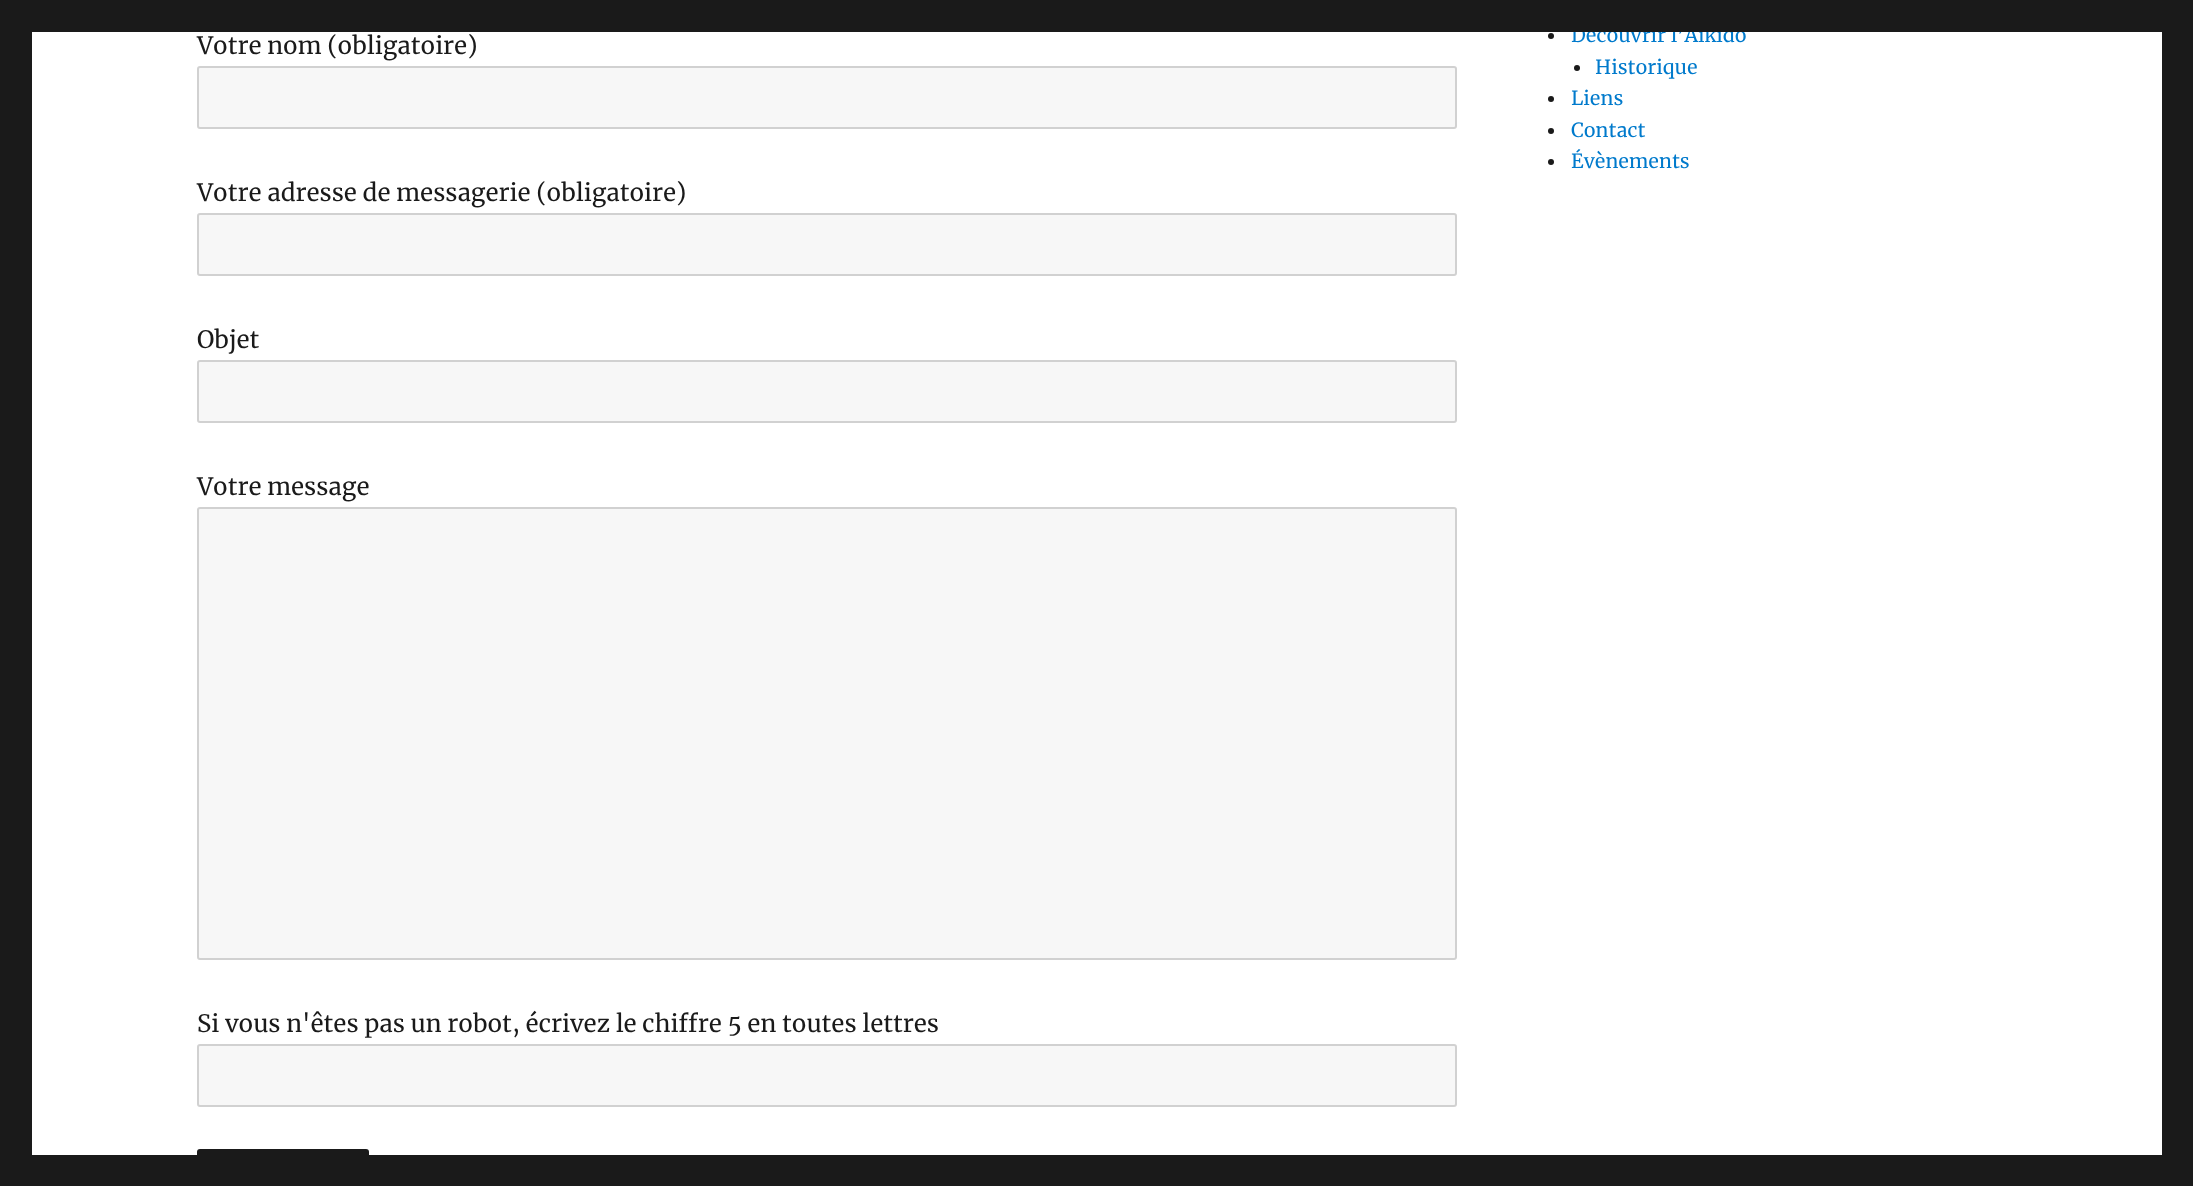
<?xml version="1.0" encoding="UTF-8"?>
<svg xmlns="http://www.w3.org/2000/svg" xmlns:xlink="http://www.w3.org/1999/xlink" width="2193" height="1186">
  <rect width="100%" height="100%" fill="#1a1a1a" />
  <rect x="32" y="32" width="2130" height="1123" fill="#ffffff" />
  <rect x="198" y="67" width="1258" height="61" rx="2" fill="#f7f7f7" stroke="#d1d1d1" stroke-width="2" />
  <rect x="198" y="214" width="1258" height="61" rx="2" fill="#f7f7f7" stroke="#d1d1d1" stroke-width="2" />
  <rect x="198" y="361" width="1258" height="61" rx="2" fill="#f7f7f7" stroke="#d1d1d1" stroke-width="2" />
  <rect x="198" y="508" width="1258" height="451" rx="2" fill="#f7f7f7" stroke="#d1d1d1" stroke-width="2" />
  <rect x="198" y="1045" width="1258" height="61" rx="2" fill="#f7f7f7" stroke="#d1d1d1" stroke-width="2" />
  <rect x="197" y="1149" width="172" height="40" rx="3" fill="#1a1a1a" />
  <circle cx="1551" cy="36" r="3" fill="#1a1a1a" />
  <circle cx="1577" cy="68" r="3" fill="#1a1a1a" />
  <circle cx="1551" cy="99" r="3" fill="#1a1a1a" />
  <circle cx="1551" cy="131" r="3" fill="#1a1a1a" />
  <circle cx="1551" cy="162" r="3" fill="#1a1a1a" />
  <text x="197" y="54" style="font-family: Merriweather; font-size: 24px; fill: #1a1a1a">Votre nom (obligatoire)</text>
  <text x="197" y="201" style="font-family: Merriweather; font-size: 24px; fill: #1a1a1a">Votre adresse de messagerie (obligatoire)</text>
  <text x="197" y="348" style="font-family: Merriweather; font-size: 24px; fill: #1a1a1a">Objet</text>
  <text x="197" y="495" style="font-family: Merriweather; font-size: 24px; fill: #1a1a1a">Votre message</text>
  <text x="197" y="1032" style="font-family: Merriweather; font-size: 24px; fill: #1a1a1a">Si vous n'êtes pas un robot, écrivez le chiffre 5 en toutes lettres</text>
  <text x="1571" y="42" style="font-family: Merriweather; font-size: 19.5px; fill: #007acc">Découvrir l’Aïkido</text>
  <text x="1595" y="74" style="font-family: Merriweather; font-size: 19.5px; fill: #007acc">Historique</text>
  <text x="1571" y="105" style="font-family: Merriweather; font-size: 19.5px; fill: #007acc">Liens</text>
  <text x="1571" y="137" style="font-family: Merriweather; font-size: 19.5px; fill: #007acc">Contact</text>
  <text x="1571" y="168" style="font-family: Merriweather; font-size: 19.5px; fill: #007acc">Évènements</text>
  <rect x="1571" y="24" width="173" height="8" fill="#1a1a1a" />
</svg>
